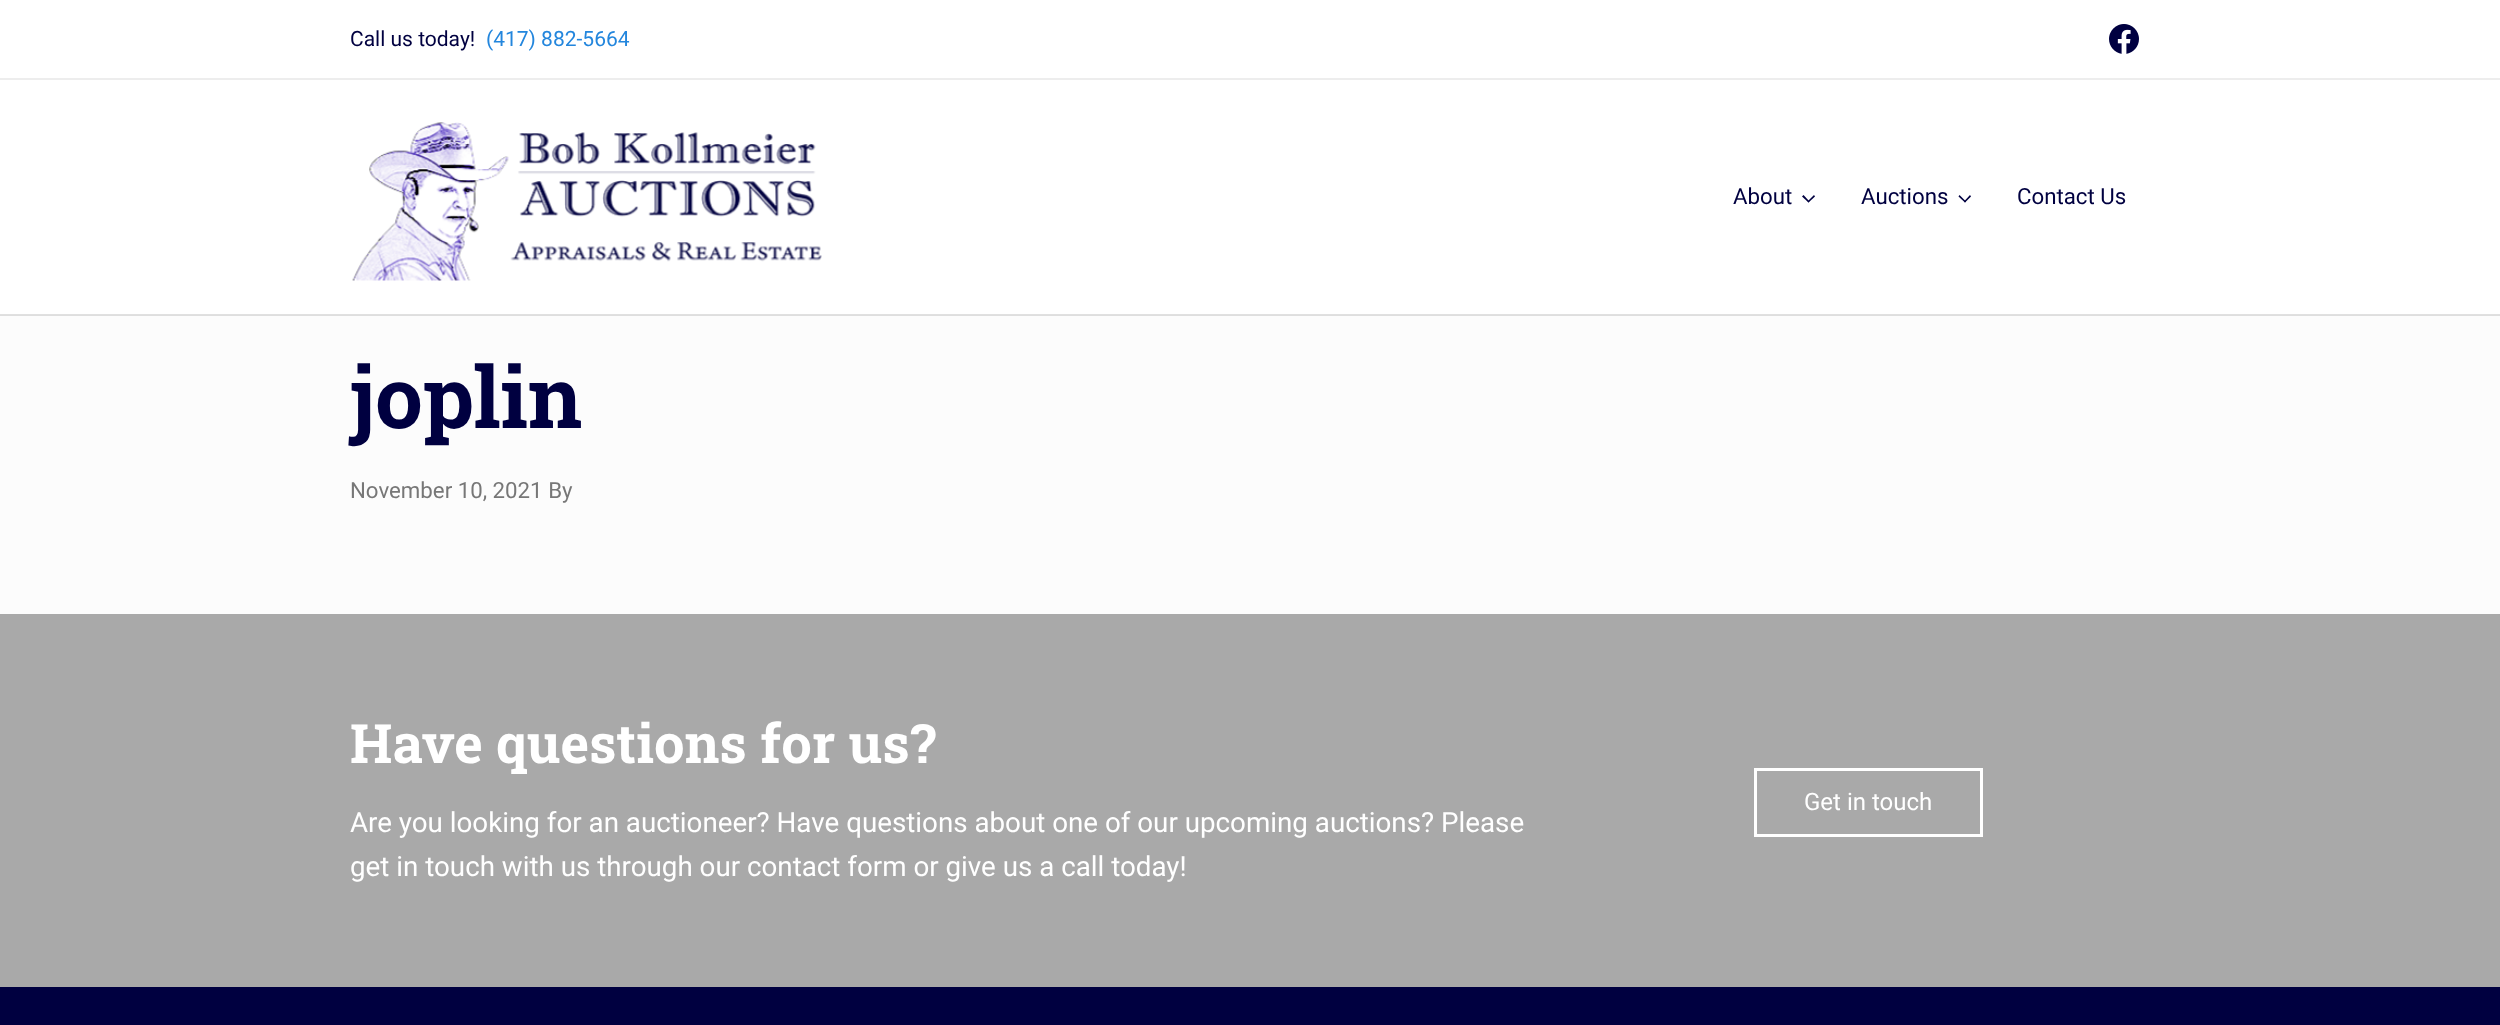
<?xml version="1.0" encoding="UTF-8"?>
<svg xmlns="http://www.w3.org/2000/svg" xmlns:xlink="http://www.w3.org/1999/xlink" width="2500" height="1025">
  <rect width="100%" height="100%" fill="#fcfcfc" />
  <rect y="315" width="2500" height="1" fill="#dedede" />
  <rect width="2500" height="78" fill="#ffffff" />
  <image x="2109" y="24" width="30" height="30" xlink:href="image1.png" />
  <rect y="78" width="2500" height="2" fill="#ededed" />
  <rect y="80" width="2500" height="234" fill="#ffffff" />
  <rect y="314" width="2500" height="1" fill="#e0e0e0" />
  <image x="352" y="122" width="470" height="159" xlink:href="image2.png" />
  <path d="M 1814 195 l 1 1.5 l -6.5 6 l -1 -1 z" fill="#000040" />
  <path d="M 1803.5 195 l 6 6.5 l -1 1 l -6.5 -6 z" fill="#000040" />
  <path d="M 1970 195 l 1 1.5 l -6 6 l -1 -1 z" fill="#000040" />
  <path d="M 1959.5 195 l 6.5 6.5 l -1 1 l -6.5 -6 z" fill="#000040" />
  <rect y="614" width="2500" height="373" fill="#a9a9a9" />
  <rect x="1755.5" y="769.5" width="226" height="66" fill="none" stroke="#ffffff" stroke-width="3" />
  <rect y="987" width="2500" height="38" fill="#000040" />
  <text x="350" y="46" style="font-family: Roboto; font-size: 21px; fill: #000040">Call us today!</text>
  <text x="486" y="46" style="font-family: Roboto; font-size: 21px; fill: #2386dd">(417) 882-5664</text>
  <text x="1733" y="204" style="font-family: Roboto; font-size: 22.25px; fill: #000040">About</text>
  <text x="1861" y="204" style="font-family: Roboto; font-size: 22.25px; fill: #000040">Auctions</text>
  <text x="2017" y="204" style="font-family: Roboto; font-size: 22.25px; fill: #000040">Contact Us</text>
  <text x="350" y="428" style="font-family: Roboto Slab; font-size: 85px; font-weight: bold; fill: #000040">joplin</text>
  <text x="350" y="498" style="font-family: Roboto; font-size: 22.25px; fill: #777777">November 10, 2021 By</text>
  <text x="350" y="763" style="font-family: Roboto Slab; font-size: 54.25px; font-weight: bold; fill: #ffffff">Have questions for us?</text>
  <text x="350" y="832" style="font-family: Roboto; font-size: 27.75px; fill: #ffffff">Are you looking for an auctioneer? Have questions about one of our upcoming auctions? Please</text>
  <text x="350" y="876" style="font-family: Roboto; font-size: 27.75px; fill: #ffffff">get in touch with us through our contact form or give us a call today!</text>
  <text x="1804" y="810" style="font-family: Roboto; font-size: 24px; fill: #ffffff">Get in touch</text>
</svg>
